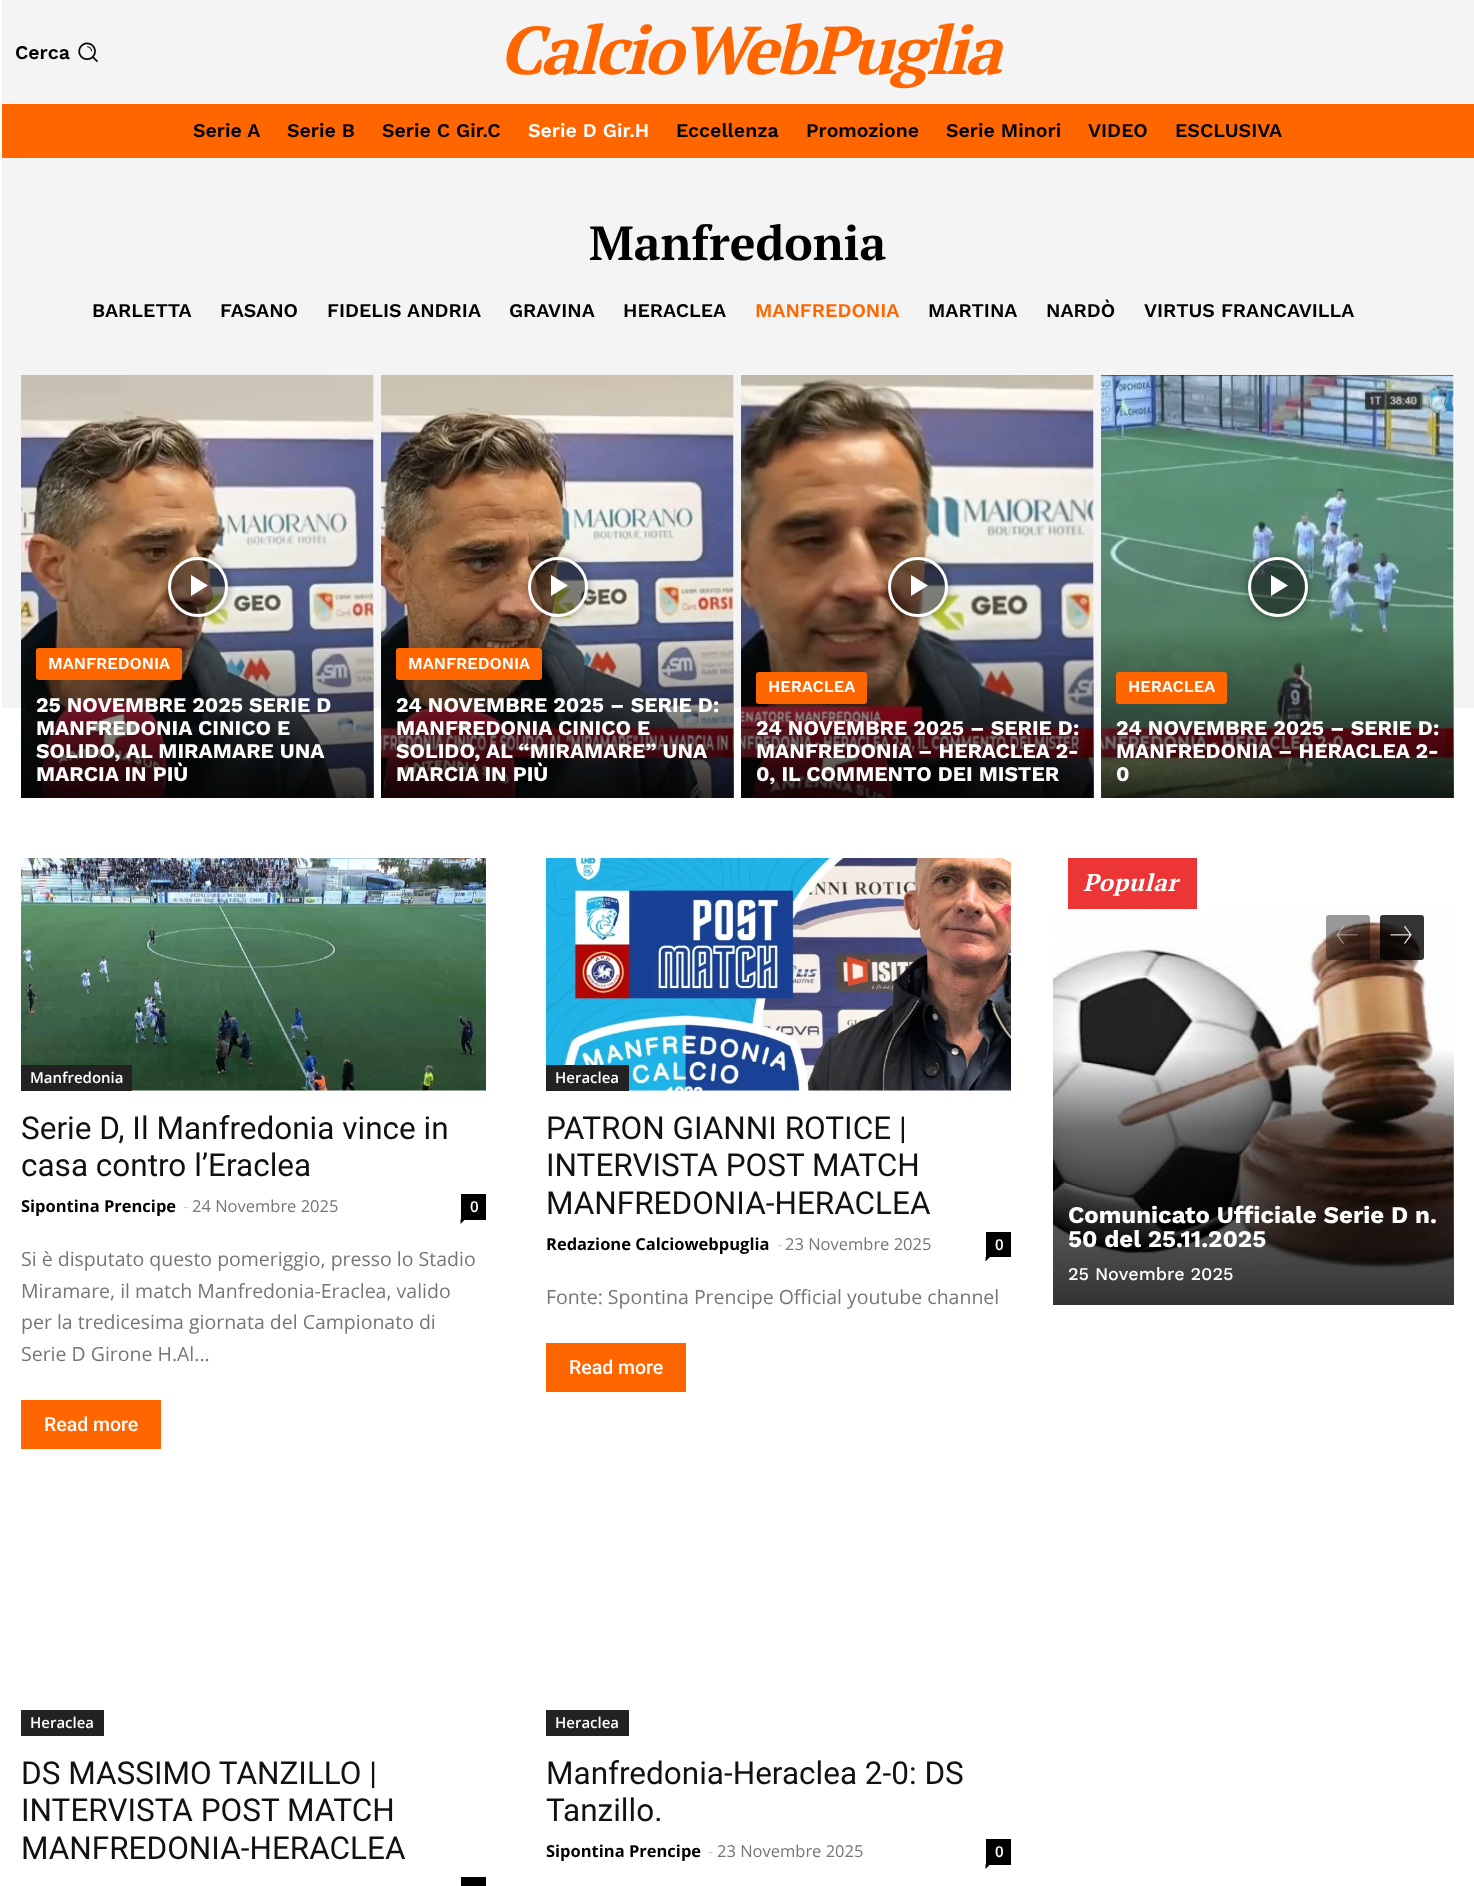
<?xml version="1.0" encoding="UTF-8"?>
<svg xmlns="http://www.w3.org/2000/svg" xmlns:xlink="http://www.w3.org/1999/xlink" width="1474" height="1886">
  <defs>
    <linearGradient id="g1" gradientUnits="userSpaceOnUse" x1="197" y1="798" x2="197" y2="375"><stop offset="0" stop-color="#000000" stop-opacity="0.8" /><stop offset="0.41" stop-color="#000000" stop-opacity="0" /><stop offset="1" stop-color="#000000" stop-opacity="0" /></linearGradient>
    <clipPath id="clip1"><path d="M 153 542 h 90 v 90 h -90 z m 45 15 c 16.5 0 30 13.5 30 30 c 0 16.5 -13.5 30 -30 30 c -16.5 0 -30 -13.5 -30 -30 c 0 -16.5 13.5 -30 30 -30 z" clip-rule="evenodd" /></clipPath>
    <linearGradient id="g2" gradientUnits="userSpaceOnUse" x1="557" y1="798" x2="557" y2="375"><stop offset="0" stop-color="#000000" stop-opacity="0.8" /><stop offset="0.41" stop-color="#000000" stop-opacity="0" /><stop offset="1" stop-color="#000000" stop-opacity="0" /></linearGradient>
    <clipPath id="clip2"><path d="M 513 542 h 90 v 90 h -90 z m 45 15 c 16.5 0 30 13.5 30 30 c 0 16.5 -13.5 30 -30 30 c -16.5 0 -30 -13.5 -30 -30 c 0 -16.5 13.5 -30 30 -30 z" clip-rule="evenodd" /></clipPath>
    <linearGradient id="g3" gradientUnits="userSpaceOnUse" x1="917" y1="798" x2="917" y2="375"><stop offset="0" stop-color="#000000" stop-opacity="0.8" /><stop offset="0.41" stop-color="#000000" stop-opacity="0" /><stop offset="1" stop-color="#000000" stop-opacity="0" /></linearGradient>
    <clipPath id="clip3"><path d="M 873 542 h 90 v 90 h -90 z m 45 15 c 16.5 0 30 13.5 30 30 c 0 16.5 -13.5 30 -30 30 c -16.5 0 -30 -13.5 -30 -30 c 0 -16.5 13.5 -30 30 -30 z" clip-rule="evenodd" /></clipPath>
    <linearGradient id="g4" gradientUnits="userSpaceOnUse" x1="1277" y1="798" x2="1277" y2="375"><stop offset="0" stop-color="#000000" stop-opacity="0.8" /><stop offset="0.41" stop-color="#000000" stop-opacity="0" /><stop offset="1" stop-color="#000000" stop-opacity="0" /></linearGradient>
    <clipPath id="clip4"><path d="M 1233 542 h 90 v 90 h -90 z m 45 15 c 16.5 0 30 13.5 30 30 c 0 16.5 -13.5 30 -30 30 c -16.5 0 -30 -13.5 -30 -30 c 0 -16.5 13.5 -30 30 -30 z" clip-rule="evenodd" /></clipPath>
    <linearGradient id="g5" gradientUnits="userSpaceOnUse" x1="1253" y1="1305" x2="1253" y2="885"><stop offset="0" stop-color="#000000" stop-opacity="0.8" /><stop offset="0.42" stop-color="#000000" stop-opacity="0.5" /><stop offset="0.61" stop-color="#000000" stop-opacity="0" /><stop offset="1" stop-color="#000000" stop-opacity="0" /></linearGradient>
  </defs>
  <rect width="100%" height="100%" fill="#ffffff" />
  <rect x="2" width="1472" height="104" fill="#f4f4f4" />
  <image x="78" y="42" width="20" height="21" xlink:href="image1.png" />
  <rect x="2" y="104" width="1472" height="54" fill="#ff6600" />
  <rect x="2" y="158" width="1472" height="550" fill="#f4f4f4" />
  <image x="21" y="375" width="353" height="423" xlink:href="image2.png" />
  <rect x="21" y="629" width="353" height="169" fill="url(#g1)" />
  <g clip-path="url(#clip1)">
    <rect x="168" y="557" width="60" height="60" rx="30" fill="#000000" fill-opacity="0.4" filter="blur(4.5px)" />
  </g>
  <circle cx="198" cy="587" r="28.5" fill="#000000" fill-opacity="0.48" stroke="#ffffff" stroke-width="3" />
  <path d="M 191 575 v 21 l 17 -10.5 z" fill="#ffffff" />
  <rect x="36" y="648" width="146" height="32" rx="3" fill="#ff6600" />
  <image x="381" y="375" width="353" height="423" xlink:href="image3.png" />
  <rect x="381" y="629" width="353" height="169" fill="url(#g2)" />
  <g clip-path="url(#clip2)">
    <rect x="528" y="557" width="60" height="60" rx="30" fill="#000000" fill-opacity="0.4" filter="blur(4.5px)" />
  </g>
  <circle cx="558" cy="587" r="28.5" fill="#000000" fill-opacity="0.48" stroke="#ffffff" stroke-width="3" />
  <path d="M 551 575 v 21 l 17 -10.5 z" fill="#ffffff" />
  <rect x="396" y="648" width="146" height="32" rx="3" fill="#ff6600" />
  <image x="741" y="375" width="353" height="423" xlink:href="image4.png" />
  <rect x="741" y="629" width="353" height="169" fill="url(#g3)" />
  <g clip-path="url(#clip3)">
    <rect x="888" y="557" width="60" height="60" rx="30" fill="#000000" fill-opacity="0.4" filter="blur(4.5px)" />
  </g>
  <circle cx="918" cy="587" r="28.5" fill="#000000" fill-opacity="0.48" stroke="#ffffff" stroke-width="3" />
  <path d="M 911 575 v 21 l 17 -10.5 z" fill="#ffffff" />
  <rect x="756" y="672" width="111" height="32" rx="3" fill="#ff6600" />
  <image x="1101" y="375" width="353" height="423" xlink:href="image5.png" />
  <rect x="1101" y="629" width="353" height="169" fill="url(#g4)" />
  <g clip-path="url(#clip4)">
    <rect x="1248" y="557" width="60" height="60" rx="30" fill="#000000" fill-opacity="0.4" filter="blur(4.5px)" />
  </g>
  <circle cx="1278" cy="587" r="28.5" fill="#000000" fill-opacity="0.48" stroke="#ffffff" stroke-width="3" />
  <path d="M 1271 575 v 21 l 17 -10.5 z" fill="#ffffff" />
  <rect x="1116" y="672" width="111" height="32" rx="3" fill="#ff6600" />
  <image x="21" y="858" width="465" height="233" xlink:href="image6.png" />
  <rect x="21" y="1065" width="111" height="26" fill="#222222" />
  <rect x="461" y="1194" width="25" height="26" fill="#000000" />
  <path d="M 460.5 1219.5 h 4.5 l -4.5 4.5 z" fill="#000000" />
  <rect x="21" y="1400" width="140" height="49" fill="#ff6600" />
  <image x="546" y="858" width="465" height="233" xlink:href="image7.png" />
  <rect x="546" y="1065" width="83" height="26" fill="#222222" />
  <rect x="986" y="1232" width="25" height="25" fill="#000000" />
  <path d="M 985.5 1257 h 4.5 l -4.5 4.5 z" fill="#000000" />
  <rect x="546" y="1343" width="140" height="49" fill="#ff6600" />
  <rect x="21" y="1710" width="83" height="26" fill="#222222" />
  <rect x="461" y="1877" width="25" height="9" fill="#000000" />
  <rect x="546" y="1710" width="83" height="26" fill="#222222" />
  <rect x="986" y="1839" width="25" height="26" fill="#000000" />
  <path d="M 985.5 1864.5 h 4.5 l -4.5 4.5 z" fill="#000000" />
  <rect x="1068" y="858" width="129" height="51" fill="#ec3535" />
  <image x="1053" y="909" width="401" height="360" xlink:href="image10.png" />
  <rect x="1326" y="915" width="44" height="45" rx="3" fill="#000000" fill-opacity="0.4" />
  <image x="1336" y="926" width="22" height="18" xlink:href="image8.png" />
  <rect x="1380" y="915" width="44" height="45" rx="3" fill="#000000" fill-opacity="0.8" />
  <image x="1390" y="926" width="22" height="18" xlink:href="image9.png" />
  <rect x="1053" y="1052" width="401" height="253" fill="url(#g5)" />
  <text x="15" y="59" style="font-family: Work Sans; font-size: 19.5px; font-weight: 600; fill: #000000">Cerca</text>
  <text x="499" y="74" style="font-family: PT Serif; font-size: 67.5px; font-weight: bold; font-style: italic; letter-spacing: -3px; fill: #ff6600">CalcioWebPuglia</text>
  <text x="193" y="137" style="font-family: Work Sans; font-size: 19.5px; font-weight: 600; fill: #000000">Serie A</text>
  <text x="287" y="137" style="font-family: Work Sans; font-size: 19.5px; font-weight: 600; fill: #000000">Serie B</text>
  <text x="382" y="137" style="font-family: Work Sans; font-size: 19.5px; font-weight: 600; fill: #000000">Serie C Gir.C</text>
  <text x="528" y="137" style="font-family: Work Sans; font-size: 19.5px; font-weight: 600; fill: #ffffff">Serie D Gir.H</text>
  <text x="676" y="137" style="font-family: Work Sans; font-size: 19.5px; font-weight: 600; fill: #000000">Eccellenza</text>
  <text x="806" y="137" style="font-family: Work Sans; font-size: 19.5px; font-weight: 600; fill: #000000">Promozione</text>
  <text x="946" y="137" style="font-family: Work Sans; font-size: 19.5px; font-weight: 600; fill: #000000">Serie Minori</text>
  <text x="1088" y="137" style="font-family: Work Sans; font-size: 19.5px; font-weight: 600; fill: #000000">VIDEO</text>
  <text x="1175" y="137" style="font-family: Work Sans; font-size: 19.5px; font-weight: 600; fill: #000000">ESCLUSIVA</text>
  <text x="589" y="260" style="font-family: PT Serif; font-size: 48px; font-weight: bold; fill: #000000">Manfredonia</text>
  <text x="92" y="317" style="font-family: Work Sans; font-size: 19.5px; font-weight: 600; fill: #000000">BARLETTA</text>
  <text x="220" y="317" style="font-family: Work Sans; font-size: 19.5px; font-weight: 600; fill: #000000">FASANO</text>
  <text x="327" y="317" style="font-family: Work Sans; font-size: 19.5px; font-weight: 600; fill: #000000">FIDELIS ANDRIA</text>
  <text x="509" y="317" style="font-family: Work Sans; font-size: 19.5px; font-weight: 600; fill: #000000">GRAVINA</text>
  <text x="623" y="317" style="font-family: Work Sans; font-size: 19.5px; font-weight: 600; fill: #000000">HERACLEA</text>
  <text x="755" y="317" style="font-family: Work Sans; font-size: 19.5px; font-weight: 600; fill: #ff6600">MANFREDONIA</text>
  <text x="928" y="317" style="font-family: Work Sans; font-size: 19.5px; font-weight: 600; fill: #000000">MARTINA</text>
  <text x="1046" y="317" style="font-family: Work Sans; font-size: 19.5px; font-weight: 600; fill: #000000">NARDÒ</text>
  <text x="1144" y="317" style="font-family: Work Sans; font-size: 19.5px; font-weight: 600; fill: #000000">VIRTUS FRANCAVILLA</text>
  <text x="48" y="669" style="font-family: Work Sans; font-size: 16.5px; font-weight: 600; fill: #ffffff">MANFREDONIA</text>
  <text x="36" y="712" style="font-family: Work Sans; font-size: 21px; font-weight: bold; fill: #ffffff">25 NOVEMBRE 2025 SERIE D</text>
  <text x="36" y="735" style="font-family: Work Sans; font-size: 21px; font-weight: bold; fill: #ffffff">MANFREDONIA CINICO E</text>
  <text x="36" y="758" style="font-family: Work Sans; font-size: 21px; font-weight: bold; fill: #ffffff">SOLIDO, AL MIRAMARE UNA</text>
  <text x="36" y="781" style="font-family: Work Sans; font-size: 21px; font-weight: bold; fill: #ffffff">MARCIA IN PIÙ</text>
  <text x="408" y="669" style="font-family: Work Sans; font-size: 16.5px; font-weight: 600; fill: #ffffff">MANFREDONIA</text>
  <text x="396" y="712" style="font-family: Work Sans; font-size: 21px; font-weight: bold; fill: #ffffff">24 NOVEMBRE 2025 – SERIE D:</text>
  <text x="396" y="735" style="font-family: Work Sans; font-size: 21px; font-weight: bold; fill: #ffffff">MANFREDONIA CINICO E</text>
  <text x="396" y="758" style="font-family: Work Sans; font-size: 21px; font-weight: bold; fill: #ffffff">SOLIDO, AL “MIRAMARE” UNA</text>
  <text x="396" y="781" style="font-family: Work Sans; font-size: 21px; font-weight: bold; fill: #ffffff">MARCIA IN PIÙ</text>
  <text x="768" y="692" style="font-family: Work Sans; font-size: 16.5px; font-weight: 600; fill: #ffffff">HERACLEA</text>
  <text x="756" y="735" style="font-family: Work Sans; font-size: 21px; font-weight: bold; fill: #ffffff">24 NOVEMBRE 2025 – SERIE D:</text>
  <text x="756" y="758" style="font-family: Work Sans; font-size: 21px; font-weight: bold; fill: #ffffff">MANFREDONIA – HERACLEA 2-</text>
  <text x="756" y="781" style="font-family: Work Sans; font-size: 21px; font-weight: bold; fill: #ffffff">0, IL COMMENTO DEI MISTER</text>
  <text x="1128" y="692" style="font-family: Work Sans; font-size: 16.5px; font-weight: 600; fill: #ffffff">HERACLEA</text>
  <text x="1116" y="735" style="font-family: Work Sans; font-size: 21px; font-weight: bold; fill: #ffffff">24 NOVEMBRE 2025 – SERIE D:</text>
  <text x="1116" y="758" style="font-family: Work Sans; font-size: 21px; font-weight: bold; fill: #ffffff">MANFREDONIA – HERACLEA 2-</text>
  <text x="1116" y="781" style="font-family: Work Sans; font-size: 21px; font-weight: bold; fill: #ffffff">0</text>
  <text x="30" y="1083" style="font-family: Open Sans; font-size: 15px; font-weight: 600; fill: #ffffff">Manfredonia</text>
  <text x="21" y="1139" style="font-family: Roboto; font-size: 31.5px; fill: #111111">Serie D, Il Manfredonia vince in</text>
  <text x="21" y="1176" style="font-family: Roboto; font-size: 31.5px; fill: #111111">casa contro l’Eraclea</text>
  <text x="21" y="1212" style="font-family: Open Sans; font-size: 16.5px; font-weight: bold; fill: #000000">Sipontina Prencipe</text>
  <text x="183" y="1212" style="font-family: Open Sans; font-size: 16.5px; fill: #cccccc">-</text>
  <text x="192" y="1212" style="font-family: Open Sans; font-size: 16.5px; fill: #767676">24 Novembre 2025</text>
  <text x="470" y="1212" style="font-family: Open Sans; font-size: 15px; font-weight: 600; fill: #ffffff">0</text>
  <text x="21" y="1266" style="font-family: Open Sans; font-size: 19.5px; fill: #767676">Si è disputato questo pomeriggio, presso lo Stadio</text>
  <text x="21" y="1298" style="font-family: Open Sans; font-size: 19.5px; fill: #767676">Miramare, il match Manfredonia-Eraclea, valido</text>
  <text x="21" y="1329" style="font-family: Open Sans; font-size: 19.5px; fill: #767676">per la tredicesima giornata del Campionato di</text>
  <text x="21" y="1361" style="font-family: Open Sans; font-size: 19.5px; fill: #767676">Serie D Girone H.Al...</text>
  <text x="44" y="1431" style="font-family: Roboto; font-size: 19.5px; font-weight: 500; fill: #ffffff">Read more</text>
  <text x="555" y="1083" style="font-family: Open Sans; font-size: 15px; font-weight: 600; fill: #ffffff">Heraclea</text>
  <text x="546" y="1139" style="font-family: Roboto; font-size: 31.5px; fill: #111111">PATRON GIANNI ROTICE |</text>
  <text x="546" y="1176" style="font-family: Roboto; font-size: 31.5px; fill: #111111">INTERVISTA POST MATCH</text>
  <text x="546" y="1214" style="font-family: Roboto; font-size: 31.5px; fill: #111111">MANFREDONIA-HERACLEA</text>
  <text x="546" y="1250" style="font-family: Open Sans; font-size: 16.5px; font-weight: bold; fill: #000000">Redazione Calciowebpuglia</text>
  <text x="777" y="1250" style="font-family: Open Sans; font-size: 16.5px; fill: #cccccc">-</text>
  <text x="785" y="1250" style="font-family: Open Sans; font-size: 16.5px; fill: #767676">23 Novembre 2025</text>
  <text x="995" y="1250" style="font-family: Open Sans; font-size: 15px; font-weight: 600; fill: #ffffff">0</text>
  <text x="546" y="1304" style="font-family: Open Sans; font-size: 19.5px; fill: #767676">Fonte: Spontina Prencipe Official youtube channel</text>
  <text x="569" y="1374" style="font-family: Roboto; font-size: 19.5px; font-weight: 500; fill: #ffffff">Read more</text>
  <text x="30" y="1728" style="font-family: Open Sans; font-size: 15px; font-weight: 600; fill: #ffffff">Heraclea</text>
  <text x="21" y="1784" style="font-family: Roboto; font-size: 31.5px; fill: #111111">DS MASSIMO TANZILLO |</text>
  <text x="21" y="1821" style="font-family: Roboto; font-size: 31.5px; fill: #111111">INTERVISTA POST MATCH</text>
  <text x="21" y="1859" style="font-family: Roboto; font-size: 31.5px; fill: #111111">MANFREDONIA-HERACLEA</text>
  <text x="555" y="1728" style="font-family: Open Sans; font-size: 15px; font-weight: 600; fill: #ffffff">Heraclea</text>
  <text x="546" y="1784" style="font-family: Roboto; font-size: 31.5px; fill: #111111">Manfredonia-Heraclea 2-0: DS</text>
  <text x="546" y="1821" style="font-family: Roboto; font-size: 31.5px; fill: #111111">Tanzillo.</text>
  <text x="546" y="1857" style="font-family: Open Sans; font-size: 16.5px; font-weight: bold; fill: #000000">Sipontina Prencipe</text>
  <text x="708" y="1857" style="font-family: Open Sans; font-size: 16.5px; fill: #cccccc">-</text>
  <text x="717" y="1857" style="font-family: Open Sans; font-size: 16.5px; fill: #767676">23 Novembre 2025</text>
  <text x="995" y="1857" style="font-family: Open Sans; font-size: 15px; font-weight: 600; fill: #ffffff">0</text>
  <text x="1083" y="891" style="font-family: PT Serif; font-size: 24px; font-weight: bold; font-style: italic; letter-spacing: 0.75px; fill: #ffffff">Popular</text>
  <text x="1068" y="1223" style="font-family: Work Sans; font-size: 24px; font-weight: bold; fill: #ffffff">Comunicato Ufficiale Serie D n.</text>
  <text x="1068" y="1247" style="font-family: Work Sans; font-size: 24px; font-weight: bold; fill: #ffffff">50 del 25.11.2025</text>
  <text x="1068" y="1280" style="font-family: Work Sans; font-size: 18px; font-weight: 500; fill: #ffffff">25 Novembre 2025</text>
</svg>
